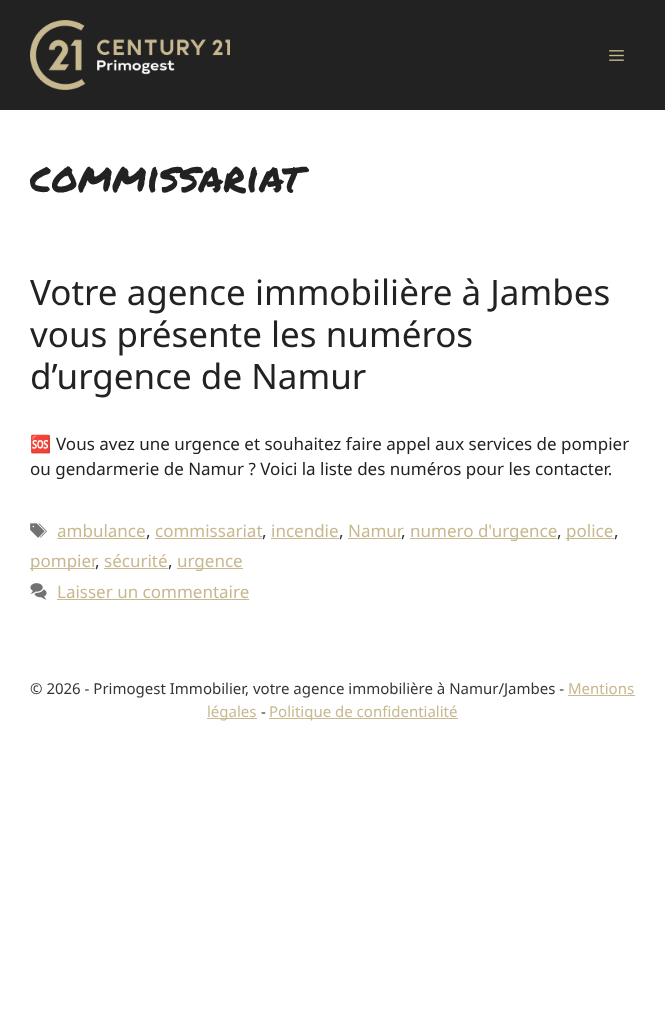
<?xml version="1.0" encoding="UTF-8"?>
<svg xmlns="http://www.w3.org/2000/svg" xmlns:xlink="http://www.w3.org/1999/xlink" width="665" height="1024">
  <rect width="100%" height="100%" fill="#ffffff" />
  <rect width="665" height="110" fill="#222222" />
  <image x="30" y="20" width="200" height="70" xlink:href="image1.png" />
  <image x="609" y="50" width="15" height="11" xlink:href="image2.png" />
  <image x="30" y="523" width="17" height="15" xlink:href="image3.png" />
  <rect x="57" y="538" width="89" height="1" fill="#c7b890" />
  <rect x="155" y="538" width="107" height="1" fill="#c7b890" />
  <rect x="271" y="538" width="68" height="1" fill="#c7b890" />
  <rect x="348" y="538" width="53" height="1" fill="#c7b890" />
  <rect x="410" y="538" width="147" height="1" fill="#c7b890" />
  <rect x="566" y="538" width="48" height="1" fill="#c7b890" />
  <rect x="30" y="568" width="65" height="1" fill="#c7b890" />
  <rect x="104" y="568" width="64" height="1" fill="#c7b890" />
  <rect x="177" y="568" width="66" height="1" fill="#c7b890" />
  <image x="30" y="583" width="17" height="17" xlink:href="image4.png" />
  <rect x="57" y="599" width="192" height="1" fill="#c7b890" />
  <rect x="568" y="695" width="67" height="1" fill="#c7b890" />
  <rect x="207" y="718" width="50" height="1" fill="#c7b890" />
  <rect x="269" y="718" width="189" height="1" fill="#c7b890" />
  <text x="30" y="192" style="font-family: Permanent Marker; font-size: 42px; fill: #222222">commissariat</text>
  <text x="30" y="305" style="font-family: Noto Sans; font-size: 35px; fill: #222222">Votre agence immobilière à Jambes</text>
  <text x="30" y="347" style="font-family: Noto Sans; font-size: 35px; fill: #222222">vous présente les numéros</text>
  <text x="30" y="389" style="font-family: Noto Sans; font-size: 35px; fill: #222222">d’urgence de Namur</text>
  <text x="30" y="450" style="font-family: Noto Color Emoji; font-size: 17px; fill: #222222">🆘</text>
  <text x="56" y="450" style="font-family: Noto Sans; font-size: 17px; fill: #222222">Vous avez une urgence et souhaitez faire appel aux services de pompier</text>
  <text x="30" y="475" style="font-family: Noto Sans; font-size: 17px; fill: #222222">ou gendarmerie de Namur ? Voici la liste des numéros pour les contacter.</text>
  <text x="57" y="537" style="font-family: Noto Sans; font-size: 17px; fill: #c7b890">ambulance</text>
  <text x="146" y="537" style="font-family: Noto Sans; font-size: 17px; fill: #343534">,</text>
  <text x="155" y="537" style="font-family: Noto Sans; font-size: 17px; fill: #c7b890">commissariat</text>
  <text x="262" y="537" style="font-family: Noto Sans; font-size: 17px; fill: #343534">,</text>
  <text x="271" y="537" style="font-family: Noto Sans; font-size: 17px; fill: #c7b890">incendie</text>
  <text x="339" y="537" style="font-family: Noto Sans; font-size: 17px; fill: #343534">,</text>
  <text x="348" y="537" style="font-family: Noto Sans; font-size: 17px; fill: #c7b890">Namur</text>
  <text x="410" y="537" style="font-family: Noto Sans; font-size: 17px; fill: #c7b890">numero d'urgence</text>
  <text x="566" y="537" style="font-family: Noto Sans; font-size: 17px; fill: #c7b890">police</text>
  <text x="401" y="537" style="font-family: Noto Sans; font-size: 17px; fill: #343534">,</text>
  <text x="557" y="537" style="font-family: Noto Sans; font-size: 17px; fill: #343534">,</text>
  <text x="614" y="537" style="font-family: Noto Sans; font-size: 17px; fill: #343534">,</text>
  <text x="30" y="567" style="font-family: Noto Sans; font-size: 17px; fill: #c7b890">pompier</text>
  <text x="104" y="567" style="font-family: Noto Sans; font-size: 17px; fill: #c7b890">sécurité</text>
  <text x="177" y="567" style="font-family: Noto Sans; font-size: 17px; fill: #c7b890">urgence</text>
  <text x="95" y="567" style="font-family: Noto Sans; font-size: 17px; fill: #343534">,</text>
  <text x="168" y="567" style="font-family: Noto Sans; font-size: 17px; fill: #343534">,</text>
  <text x="57" y="598" style="font-family: Noto Sans; font-size: 17px; fill: #c7b890">Laisser un commentaire</text>
  <text x="30" y="694" style="font-family: Noto Sans; font-size: 15px; fill: #343534">© 2026 - Primogest Immobilier, votre agence immobilière à Namur/Jambes -</text>
  <text x="568" y="694" style="font-family: Noto Sans; font-size: 15px; fill: #c7b890">Mentions</text>
  <text x="207" y="717" style="font-family: Noto Sans; font-size: 15px; fill: #c7b890">légales</text>
  <text x="261" y="717" style="font-family: Noto Sans; font-size: 15px; fill: #343534">-</text>
  <text x="269" y="717" style="font-family: Noto Sans; font-size: 15px; fill: #c7b890">Politique de confidentialité</text>
</svg>
